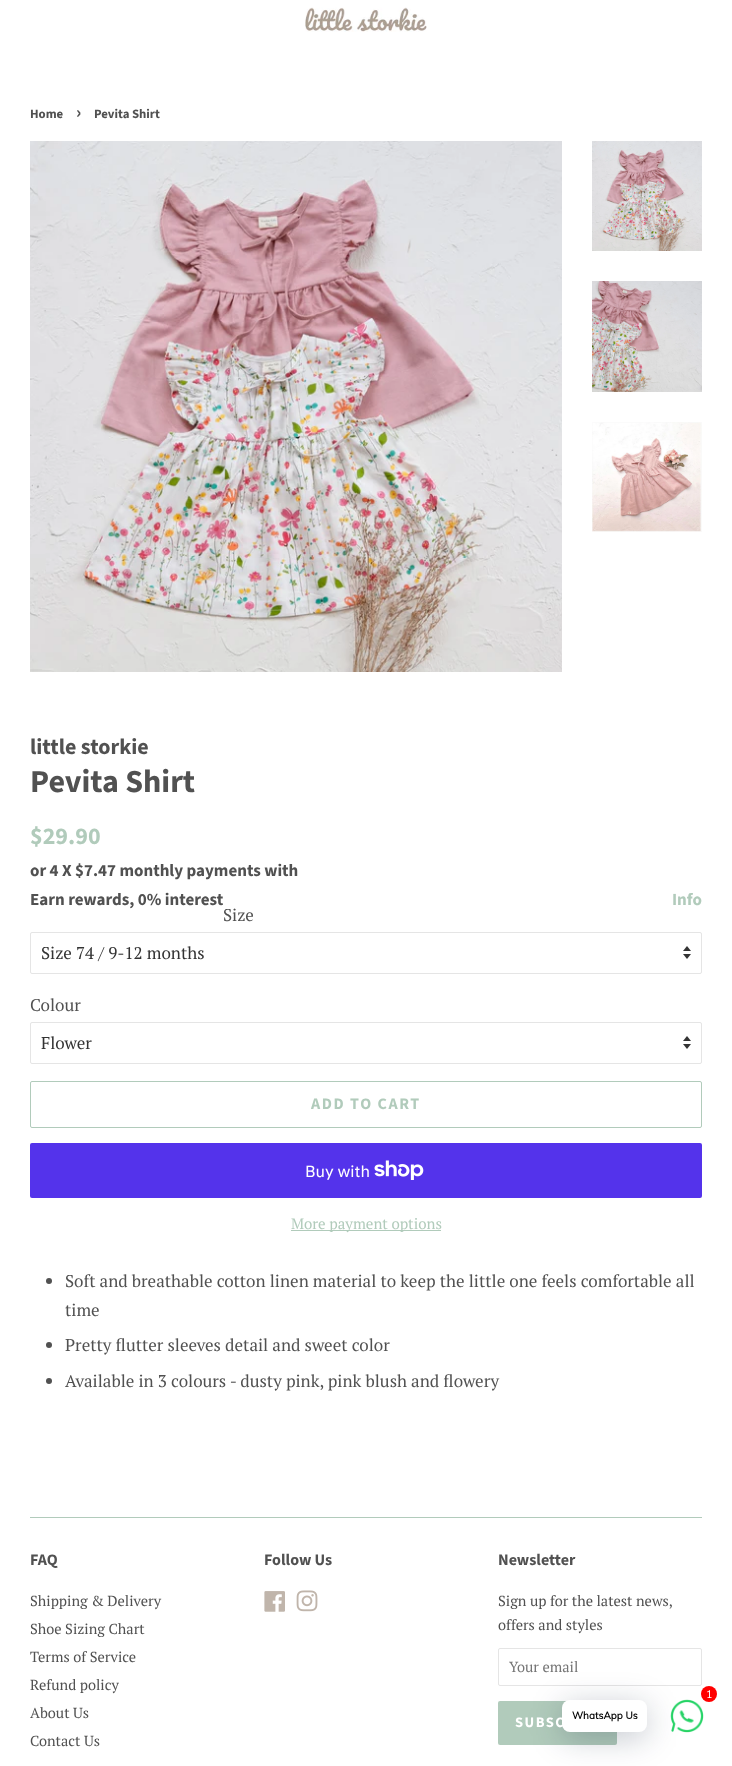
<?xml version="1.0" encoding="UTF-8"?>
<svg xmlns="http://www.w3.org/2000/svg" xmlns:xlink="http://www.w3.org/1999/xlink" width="732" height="1766">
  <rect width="100%" height="100%" fill="#ffffff" />
  <image x="305" y="7" width="122" height="25" xlink:href="image1.png" />
  <image x="30" y="141" width="532" height="531" xlink:href="image2.png" />
  <image x="592" y="141" width="110" height="110" xlink:href="image3.png" />
  <image x="592" y="281" width="110" height="111" xlink:href="image4.png" />
  <image x="592" y="422" width="110" height="110" xlink:href="image5.png" />
  <image x="683" y="946" width="8" height="13" xlink:href="image6.png" />
  <rect x="30.5" y="932.5" width="671" height="41" rx="1.5" fill="none" stroke="#e5e5e5" />
  <image x="683" y="1036" width="8" height="13" xlink:href="image6.png" />
  <rect x="30.5" y="1022.5" width="671" height="41" rx="1.5" fill="none" stroke="#e5e5e5" />
  <rect x="30.5" y="1081.5" width="671" height="46" rx="1.5" fill="none" stroke="#b1cbbb" />
  <rect x="30" y="1143" width="672" height="55" rx="2" fill="#5433eb" />
  <image x="374" y="1160" width="50" height="20" xlink:href="image7.png" />
  <rect x="291" y="1230" width="150" height="1" fill="#b1cbbb" />
  <circle cx="49" cy="1281" r="3" fill="#515151" />
  <circle cx="49" cy="1345" r="3" fill="#515151" />
  <circle cx="49" cy="1381" r="3" fill="#515151" />
  <rect x="30" y="1517" width="672" height="1" fill="#b1cbbb" />
  <image x="264" y="1591" width="21" height="21" xlink:href="image8.png" />
  <image x="296" y="1590" width="22" height="22" xlink:href="image9.png" />
  <rect x="498.5" y="1648.5" width="203" height="37" rx="1.5" fill="none" stroke="#e5e5e5" />
  <rect x="498" y="1701" width="119" height="44" rx="2" fill="#b1cbbb" />
  <image x="670" y="1699" width="34" height="34" xlink:href="image10.png" />
  <circle cx="709" cy="1694" r="8" fill="#ff0000" />
  <rect x="562" y="1706" width="85" height="32" rx="8" fill="#00122e" fill-opacity="0.24" filter="blur(16px)" />
  <rect x="562" y="1700" width="85" height="32" rx="8" fill="#ffffff" />
  <text x="30" y="118" style="font-family: Source Sans Pro; font-size: 12.75px; font-weight: bold; fill: #515151">Home</text>
  <text x="76" y="118" style="font-family: Source Sans Pro; font-size: 18px; font-weight: bold; fill: #515151">›</text>
  <text x="94" y="118" style="font-family: Source Sans Pro; font-size: 12.75px; font-weight: bold; fill: #515151">Pevita Shirt</text>
  <text x="30" y="754" style="font-family: Source Sans Pro; font-size: 22px; font-weight: bold; fill: #515151">little storkie</text>
  <text x="30" y="792" style="font-family: Source Sans Pro; font-size: 32px; font-weight: bold; fill: #515151">Pevita Shirt</text>
  <text x="30" y="844" style="font-family: Source Sans Pro; font-size: 24px; font-weight: bold; fill: #b1cbbb">$29.90</text>
  <text x="30" y="876" style="font-family: Source Sans Pro; font-size: 17px; font-weight: bold; fill: #515151">or 4 X $7.47 monthly payments with</text>
  <text x="30" y="905" style="font-family: Source Sans Pro; font-size: 17px; font-weight: bold; fill: #515151">Earn rewards, 0% interest</text>
  <text x="672" y="905" style="font-family: Source Sans Pro; font-size: 17px; font-weight: bold; fill: #b1cbbb">Info</text>
  <text x="223" y="921" style="font-family: PT Serif; font-size: 17px; fill: #515151">Size</text>
  <text x="41" y="959" style="font-family: PT Serif; font-size: 17px; fill: #333333">Size 74 / 9-12 months</text>
  <text x="30" y="1011" style="font-family: PT Serif; font-size: 17px; fill: #515151">Colour</text>
  <text x="41" y="1049" style="font-family: PT Serif; font-size: 17px; fill: #333333">Flower</text>
  <text x="311" y="1109" style="font-family: Source Sans Pro; font-size: 16px; font-weight: bold; letter-spacing: 1.6px; fill: #b1cbbb">ADD TO CART</text>
  <text x="305" y="1177" style="font-family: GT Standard; font-size: 16px; fill: #ffffff">Buy with</text>
  <text x="291" y="1229" style="font-family: PT Serif; font-size: 15px; fill: #b1cbbb">More payment options</text>
  <text x="65" y="1287" style="font-family: PT Serif; font-size: 17px; fill: #515151">Soft and breathable cotton linen material to keep the little one feels comfortable all</text>
  <text x="65" y="1316" style="font-family: PT Serif; font-size: 17px; fill: #515151">time</text>
  <text x="65" y="1351" style="font-family: PT Serif; font-size: 17px; fill: #515151">Pretty flutter sleeves detail and sweet color</text>
  <text x="65" y="1387" style="font-family: PT Serif; font-size: 17px; fill: #515151">Available in 3 colours - dusty pink, pink blush and flowery</text>
  <text x="30" y="1565" style="font-family: Source Sans Pro; font-size: 16px; font-weight: bold; fill: #515151">FAQ</text>
  <text x="30" y="1606" style="font-family: PT Serif; font-size: 14.5px; fill: #515151">Shipping &amp; Delivery</text>
  <text x="30" y="1634" style="font-family: PT Serif; font-size: 14.5px; fill: #515151">Shoe Sizing Chart</text>
  <text x="30" y="1662" style="font-family: PT Serif; font-size: 14.5px; fill: #515151">Terms of Service</text>
  <text x="30" y="1690" style="font-family: PT Serif; font-size: 14.5px; fill: #515151">Refund policy</text>
  <text x="30" y="1718" style="font-family: PT Serif; font-size: 14.5px; fill: #515151">About Us</text>
  <text x="30" y="1746" style="font-family: PT Serif; font-size: 14.5px; fill: #515151">Contact Us</text>
  <text x="264" y="1565" style="font-family: Source Sans Pro; font-size: 16px; font-weight: bold; fill: #515151">Follow Us</text>
  <text x="498" y="1565" style="font-family: Source Sans Pro; font-size: 16px; font-weight: bold; fill: #515151">Newsletter</text>
  <text x="498" y="1606" style="font-family: PT Serif; font-size: 14.5px; fill: #515151">Sign up for the latest news,</text>
  <text x="498" y="1630" style="font-family: PT Serif; font-size: 14.5px; fill: #515151">offers and styles</text>
  <text x="509" y="1672" style="font-family: PT Serif; font-size: 14.5px; fill: #757575">Your email</text>
  <text x="515" y="1727" style="font-family: Source Sans Pro; font-size: 14.5px; font-weight: bold; letter-spacing: 1.5px; fill: #ffffff">SUBSC</text>
  <text x="707" y="1698" style="font-family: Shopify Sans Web; font-size: 11px; fill: #ffffff">1</text>
  <text x="572" y="1719" style="font-family: Muli; font-size: 10px; font-weight: bold; fill: #000000">WhatsApp Us</text>
</svg>
